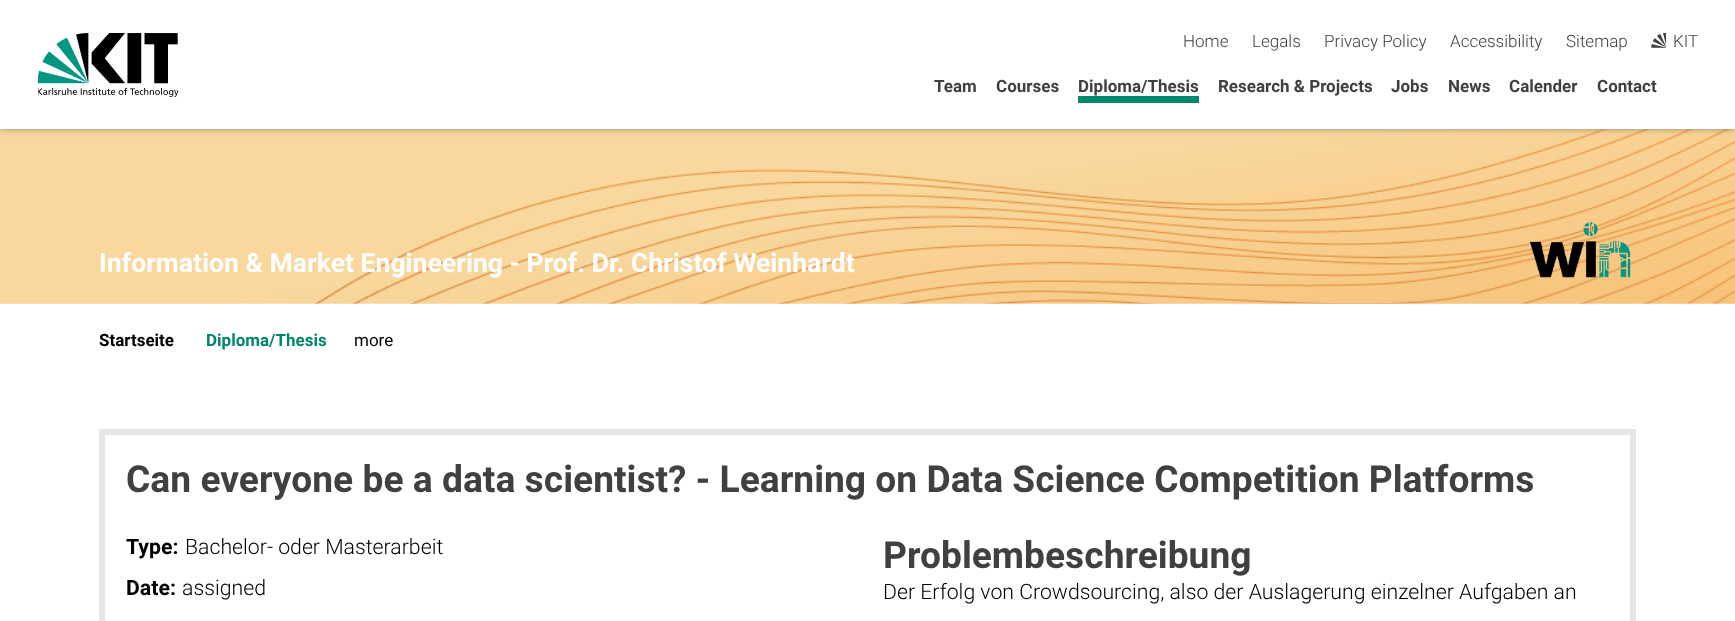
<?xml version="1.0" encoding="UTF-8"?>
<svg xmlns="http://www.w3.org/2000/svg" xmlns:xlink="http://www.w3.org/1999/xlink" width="1735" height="621">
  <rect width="100%" height="100%" fill="#ffffff" />
  <image x="0" y="129" width="1735" height="175" xlink:href="image3.png" />
  <rect width="1735" height="129" fill="#404040" fill-opacity="0.5" filter="blur(3px)" />
  <rect width="1735" height="129" fill="#ffffff" />
  <image x="38" y="33" width="141" height="64" xlink:href="image1.png" />
  <image x="1651" y="33" width="15" height="15" xlink:href="image2.png" />
  <rect x="1078" y="96" width="121" height="7" fill="#00876c" />
  <image x="1529" y="222" width="102" height="56" xlink:href="image4.png" />
  <rect x="102" y="432" width="1531" height="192" fill="none" stroke="#e6e6e6" stroke-width="6" />
  <text x="1183" y="47" style="font-family: Roboto; font-size: 17px; font-weight: 300; fill: #404040">Home</text>
  <text x="1252" y="47" style="font-family: Roboto; font-size: 17px; font-weight: 300; fill: #404040">Legals</text>
  <text x="1324" y="47" style="font-family: Roboto; font-size: 17px; font-weight: 300; fill: #404040">Privacy Policy</text>
  <text x="1450" y="47" style="font-family: Roboto; font-size: 17px; font-weight: 300; fill: #404040">Accessibility</text>
  <text x="1566" y="47" style="font-family: Roboto; font-size: 17px; font-weight: 300; fill: #404040">Sitemap</text>
  <text x="1673" y="47" style="font-family: Roboto; font-size: 17px; font-weight: 300; fill: #404040">KIT</text>
  <text x="934" y="92" style="font-family: Roboto; font-size: 17px; font-weight: bold; fill: #404040">Team</text>
  <text x="996" y="92" style="font-family: Roboto; font-size: 17px; font-weight: bold; fill: #404040">Courses</text>
  <text x="1078" y="92" style="font-family: Roboto; font-size: 17px; font-weight: bold; fill: #404040">Diploma/Thesis</text>
  <text x="1218" y="92" style="font-family: Roboto; font-size: 17px; font-weight: bold; fill: #404040">Research &amp; Projects</text>
  <text x="1391" y="92" style="font-family: Roboto; font-size: 17px; font-weight: bold; fill: #404040">Jobs</text>
  <text x="1448" y="92" style="font-family: Roboto; font-size: 17px; font-weight: bold; fill: #404040">News</text>
  <text x="1509" y="92" style="font-family: Roboto; font-size: 17px; font-weight: bold; fill: #404040">Calender</text>
  <text x="1597" y="92" style="font-family: Roboto; font-size: 17px; font-weight: bold; fill: #404040">Contact</text>
  <text x="99" y="272" style="font-family: Roboto; font-size: 26.55px; font-weight: bold; fill: #ffffff">Information &amp; Market Engineering - Prof. Dr. Christof Weinhardt</text>
  <text x="99" y="346" style="font-family: Roboto; font-size: 17px; font-weight: bold; fill: #000000">Startseite</text>
  <text x="206" y="346" style="font-family: Roboto; font-size: 17px; font-weight: bold; fill: #00876c">Diploma/Thesis</text>
  <text x="354" y="346" style="font-family: Roboto; font-size: 17px; fill: #000000">more</text>
  <text x="126" y="492" style="font-family: Roboto; font-size: 37.2px; font-weight: bold; fill: #404040">Can everyone be a data scientist? - Learning on Data Science Competition Platforms</text>
  <text x="126" y="554" style="font-family: Roboto; font-size: 21.25px; font-weight: bold; fill: #000000">Type:</text>
  <text x="185" y="554" style="font-family: Roboto; font-size: 21.25px; font-weight: 300; fill: #000000">Bachelor- oder Masterarbeit</text>
  <text x="126" y="595" style="font-family: Roboto; font-size: 21.25px; font-weight: bold; fill: #000000">Date:</text>
  <text x="182" y="595" style="font-family: Roboto; font-size: 21.25px; font-weight: 300; fill: #000000">assigned</text>
  <text x="883" y="568" style="font-family: Roboto; font-size: 37.2px; font-weight: bold; fill: #404040">Problembeschreibung</text>
  <text x="883" y="599" style="font-family: Roboto; font-size: 21.25px; font-weight: 300; fill: #000000">Der Erfolg von Crowdsourcing, also der Auslagerung einzelner Aufgaben an</text>
</svg>
